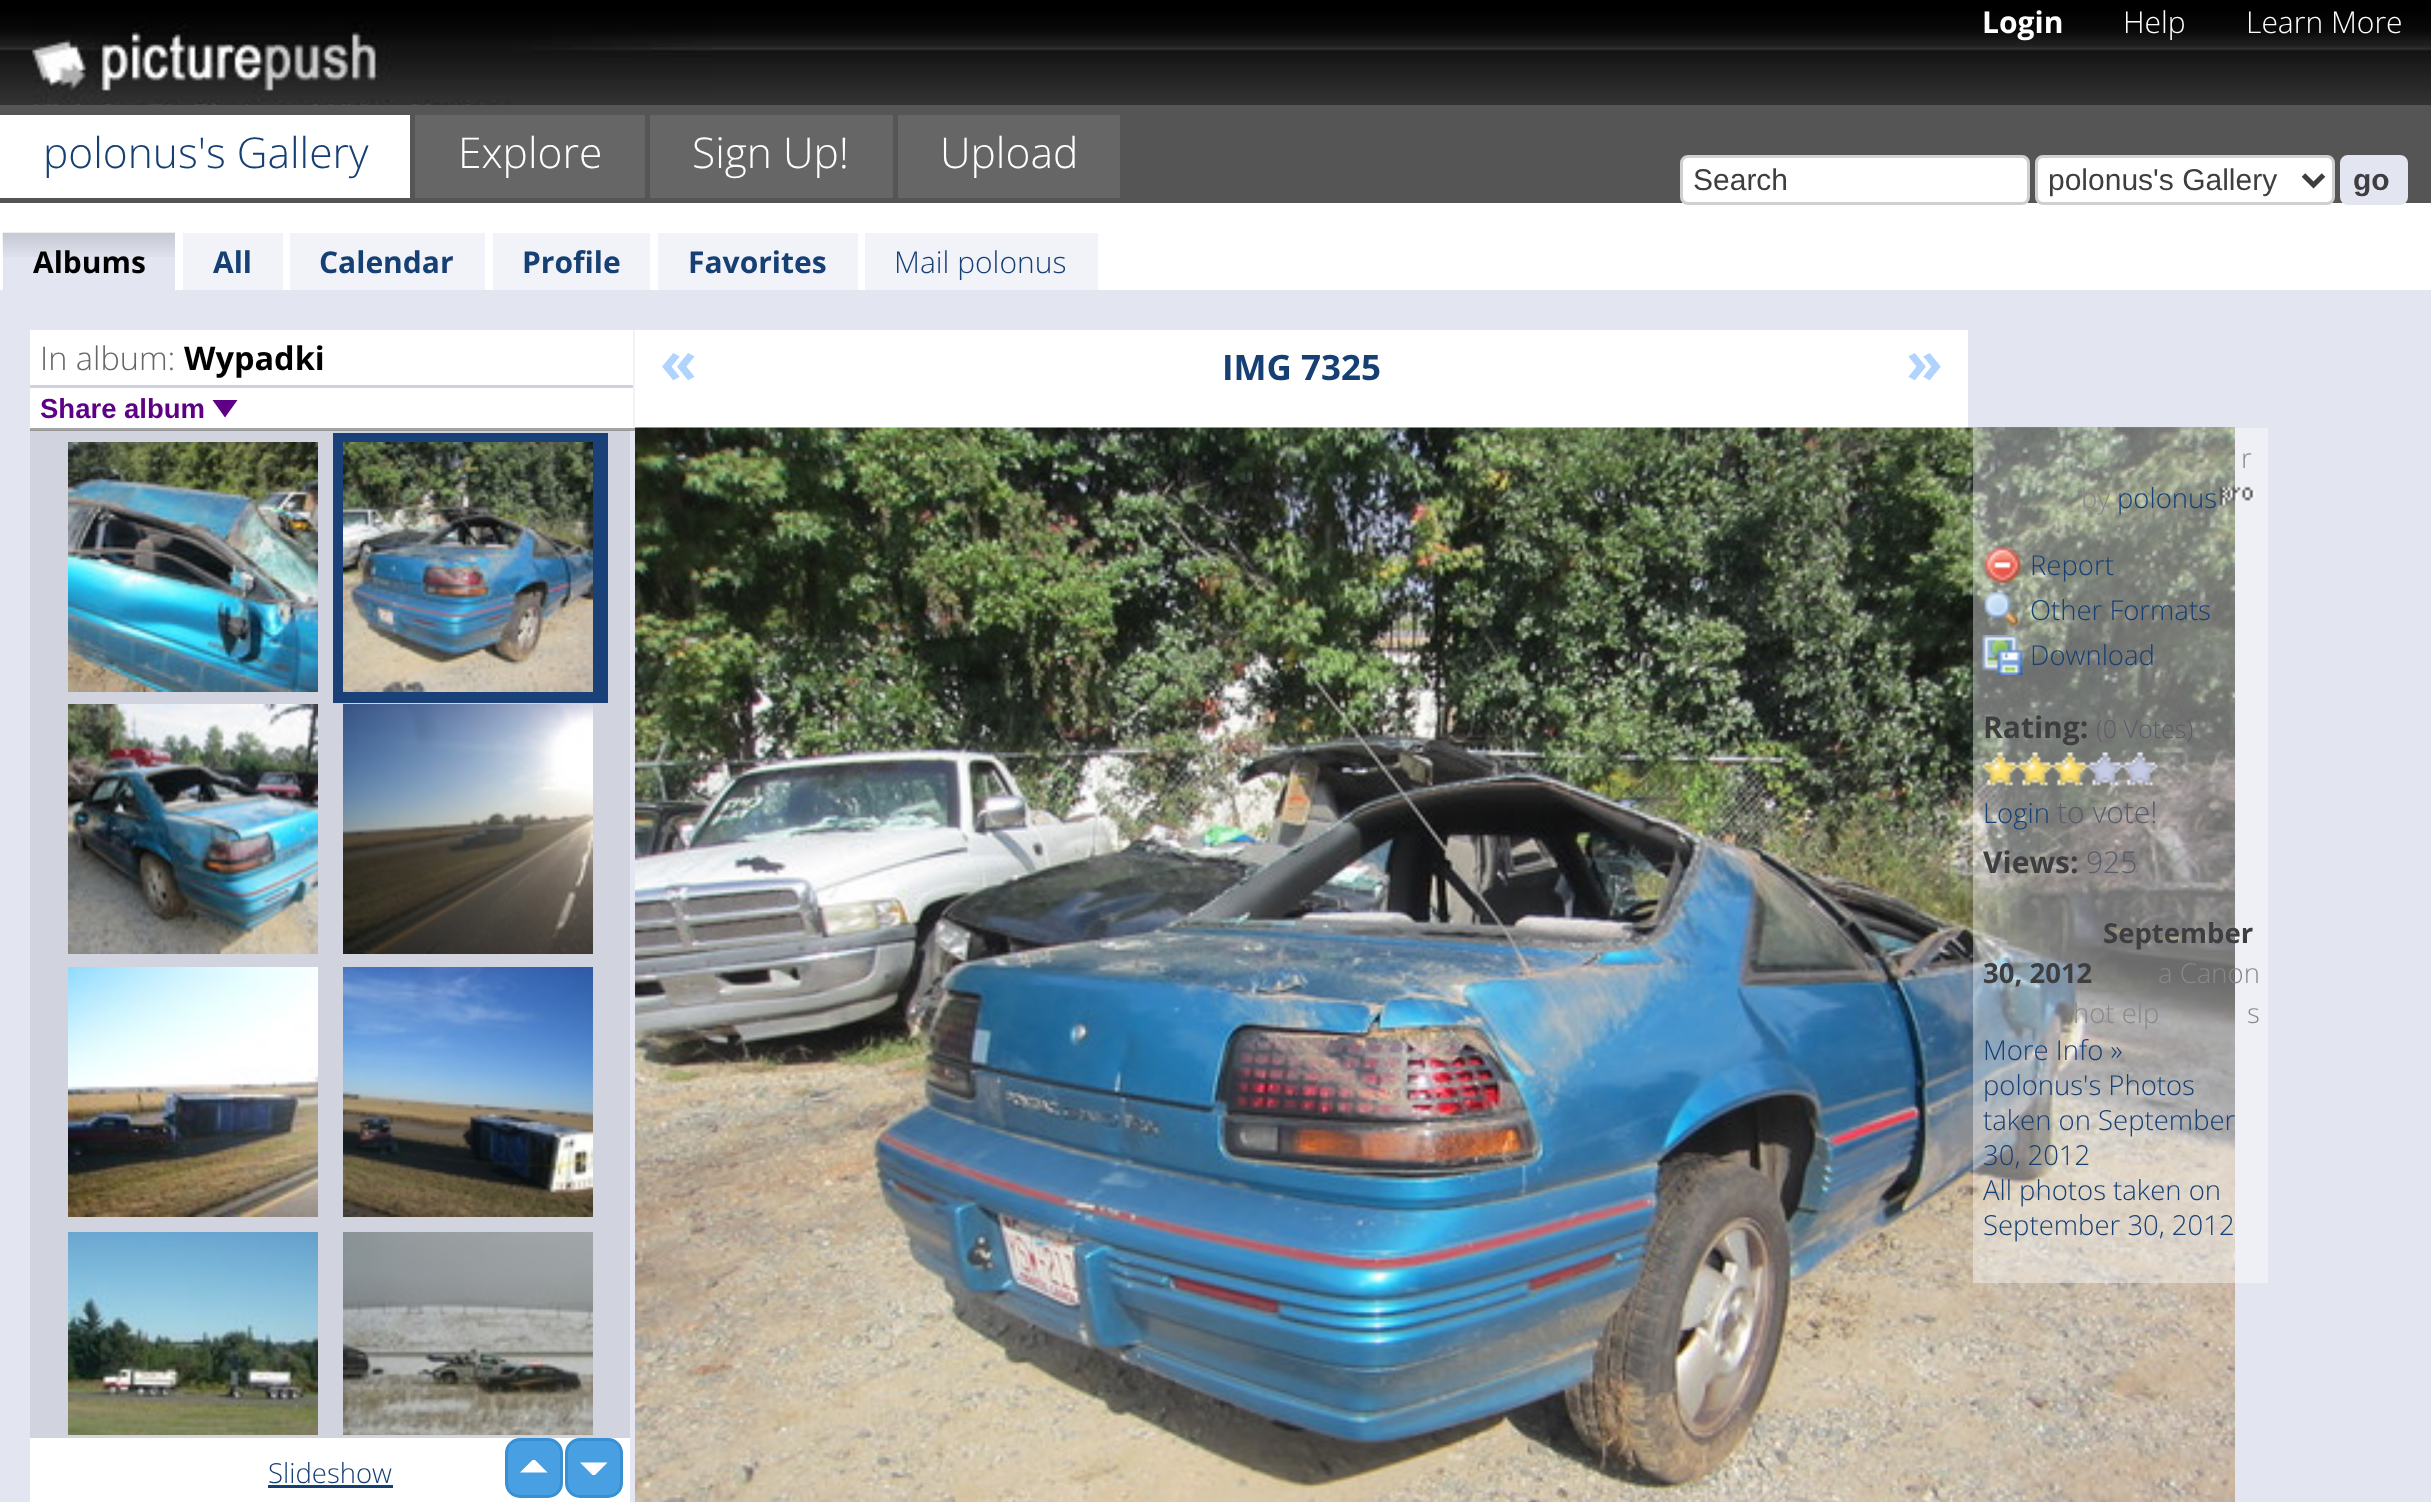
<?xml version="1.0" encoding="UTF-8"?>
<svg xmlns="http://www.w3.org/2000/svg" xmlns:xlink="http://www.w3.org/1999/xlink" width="2431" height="1502">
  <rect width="100%" height="100%" fill="#e3e6f1" />
  <rect x="30" y="431" width="600" height="1007" fill="#d1d4de" />
  <image x="0" y="0" width="2431" height="105" xlink:href="image1.png" />
  <image x="32" y="21" width="680" height="84" xlink:href="image2.png" />
  <rect y="105" width="2431" height="98" fill="#555555" />
  <rect y="115" width="410" height="83" fill="#ffffff" />
  <rect x="415" y="115" width="230" height="83" fill="#666666" />
  <rect x="650" y="115" width="243" height="83" fill="#666666" />
  <rect x="898" y="115" width="222" height="83" fill="#666666" />
  <rect y="203" width="2431" height="87" fill="#ffffff" />
  <rect x="1681.5" y="156.5" width="347" height="47" rx="6.5" fill="#ffffff" stroke="#d0d0d0" stroke-width="3" />
  <rect x="2036.5" y="156.5" width="297" height="47" rx="6.5" fill="#ffffff" stroke="#d0d0d0" stroke-width="3" />
  <path d="M 2303.5 175 l 10 10 l 10 -10" fill="none" stroke="#3e3e3e" stroke-width="5" />
  <rect x="2341.5" y="156.5" width="65" height="47" rx="6.5" fill="#e3e6f1" stroke="#e3e6f1" stroke-width="3" />
  <rect x="3" y="233" width="172" height="57" fill="#e3e6f1" />
  <image x="2" y="232" width="173" height="25" xlink:href="image3.png" />
  <rect x="183" y="233" width="100" height="57" fill="#f1f3f9" />
  <rect x="290" y="233" width="195" height="57" fill="#f1f3f9" />
  <rect x="493" y="233" width="157" height="57" fill="#f1f3f9" />
  <rect x="658" y="233" width="200" height="57" fill="#f1f3f9" />
  <rect x="865" y="233" width="233" height="57" fill="#f1f3f9" />
  <rect x="30" y="330" width="603" height="98" fill="#ffffff" />
  <rect x="633" y="330" width="2" height="100" fill="#f3f3f3" />
  <rect x="30" y="428" width="605" height="3" fill="#a4a4a4" />
  <rect x="30" y="430" width="600" height="1" fill="#979797" />
  <rect x="30" y="385" width="603" height="3" fill="#d0d0e0" />
  <path d="M 212.5 400 h 25 l -12.5 17.5 z" fill="#5e0085" />
  <image x="68" y="442" width="250" height="250" xlink:href="image4.png" />
  <rect x="333" y="433" width="275" height="270" fill="#194077" />
  <image x="343" y="442" width="250" height="250" xlink:href="image5.png" />
  <image x="68" y="704" width="250" height="250" xlink:href="image6.png" />
  <image x="343" y="704" width="250" height="250" xlink:href="image7.png" />
  <image x="68" y="967" width="250" height="250" xlink:href="image8.png" />
  <image x="343" y="967" width="250" height="250" xlink:href="image9.png" />
  <image x="68" y="1232" width="250" height="203" xlink:href="image10.png" />
  <image x="343" y="1232" width="250" height="203" xlink:href="image11.png" />
  <rect x="30" y="1438" width="600" height="64" fill="#ffffff" />
  <rect x="506.5" y="1439.5" width="55" height="57" rx="13.5" fill="#48a0e3" stroke="#3890d3" stroke-width="3" />
  <path d="M 547.5 1472.5 h -27.5 l 12.5 -12.5 h 2.5 z" fill="#ffffff" />
  <rect x="566.5" y="1439.5" width="55" height="57" rx="13.5" fill="#48a0e3" stroke="#3890d3" stroke-width="3" />
  <path d="M 580 1462.5 h 27.5 l -12.5 12.5 h -2.5 z" fill="#ffffff" />
  <rect x="268" y="1485" width="125" height="3" fill="#163f73" />
  <rect x="635" y="330" width="1333" height="98" fill="#ffffff" />
  <image x="635" y="427" width="1600" height="1075" xlink:href="image12.png" />
  <rect x="1973" y="428" width="295" height="855" fill="#ffffff" fill-opacity="0.4" />
  <image x="2219" y="486" width="37" height="20" xlink:href="image13.png" />
  <image x="1984" y="546" width="37" height="38" xlink:href="image14.png" />
  <image x="1984" y="591" width="35" height="37" xlink:href="image15.png" />
  <image x="1982" y="635" width="41" height="40" xlink:href="image16.png" />
  <image x="1982" y="752" width="36" height="34" xlink:href="image17.png" />
  <image x="2017" y="752" width="36" height="34" xlink:href="image18.png" />
  <image x="2052" y="752" width="36" height="34" xlink:href="image19.png" />
  <image x="2087" y="752" width="36" height="34" xlink:href="image20.png" />
  <image x="2122" y="752" width="36" height="34" xlink:href="image21.png" />
  <text x="1982" y="33" style="font-family: Open Sans; font-size: 30px; font-weight: bold; fill: #ffffff">Login</text>
  <text x="2123" y="33" style="font-family: Open Sans; font-size: 30px; font-weight: 300; fill: #ffffff">Help</text>
  <text x="2246" y="33" style="font-family: Open Sans; font-size: 30px; font-weight: 300; fill: #ffffff">Learn More</text>
  <text x="43" y="168" style="font-family: Open Sans; font-size: 42.5px; font-weight: 300; fill: #163f73">polonus's Gallery</text>
  <text x="458" y="168" style="font-family: Open Sans; font-size: 42.5px; font-weight: 300; fill: #ffffff">Explore</text>
  <text x="692" y="168" style="font-family: Open Sans; font-size: 42.5px; font-weight: 300; fill: #ffffff">Sign Up!</text>
  <text x="940" y="168" style="font-family: Open Sans; font-size: 42.5px; font-weight: 300; fill: #ffffff">Upload</text>
  <text x="1693" y="190" style="font-family: Liberation Sans; font-size: 30px; fill: #3e3e41">Search</text>
  <text x="2048" y="190" style="font-family: Liberation Sans; font-size: 30px; fill: #3e3e41">polonus's Gallery</text>
  <text x="2353" y="190" style="font-family: Liberation Sans; font-size: 30px; font-weight: bold; fill: #3e3e41">go</text>
  <text x="33" y="273" style="font-family: Open Sans; font-size: 30px; font-weight: bold; fill: #000000">Albums</text>
  <text x="213" y="273" style="font-family: Open Sans; font-size: 30px; font-weight: bold; fill: #163f73">All</text>
  <text x="319" y="273" style="font-family: Open Sans; font-size: 30px; font-weight: bold; fill: #163f73">Calendar</text>
  <text x="522" y="273" style="font-family: Open Sans; font-size: 30px; font-weight: bold; fill: #163f73">Profile</text>
  <text x="688" y="273" style="font-family: Open Sans; font-size: 30px; font-weight: bold; fill: #163f73">Favorites</text>
  <text x="894" y="273" style="font-family: Open Sans; font-size: 30px; font-weight: 300; fill: #163f73">Mail polonus</text>
  <text x="40" y="370" style="font-family: Open Sans; font-size: 32.5px; font-weight: 300; fill: #666666">In album:</text>
  <text x="184" y="370" style="font-family: Open Sans; font-size: 32.5px; font-weight: bold; fill: #000000">Wypadki</text>
  <text x="40" y="418" style="font-family: Liberation Sans; font-size: 27.5px; font-weight: bold; fill: #5e0085">Share album</text>
  <text x="268" y="1483" style="font-family: Open Sans; font-size: 27.5px; font-weight: 300; fill: #163f73">Slideshow</text>
  <text x="660" y="383" style="font-family: Open Sans; font-size: 60px; font-weight: bold; fill: #b0d4fe">«</text>
  <text x="1222" y="380" style="font-family: Open Sans; font-size: 35px; font-weight: bold; fill: #163f73">IMG 7325</text>
  <text x="1906" y="383" style="font-family: Open Sans; font-size: 60px; font-weight: bold; fill: #b0d4fe">»</text>
  <text x="2241" y="468" style="font-family: Open Sans; font-size: 27.5px; font-weight: 300; fill: #888888">r</text>
  <text x="2081" y="508" style="font-family: Open Sans; font-size: 27.5px; font-weight: 300; fill: #888888">by</text>
  <text x="2117" y="508" style="font-family: Open Sans; font-size: 27.5px; font-weight: 300; fill: #163f73">polonus</text>
  <text x="2030" y="575" style="font-family: Open Sans; font-size: 27.5px; font-weight: 300; fill: #163f73">Report</text>
  <text x="2030" y="620" style="font-family: Open Sans; font-size: 27.5px; font-weight: 300; fill: #163f73">Other Formats</text>
  <text x="2030" y="665" style="font-family: Open Sans; font-size: 27.5px; font-weight: 300; fill: #163f73">Download</text>
  <text x="1983" y="738" style="font-family: Open Sans; font-size: 30px; font-weight: bold; fill: #3e3e41">Rating:</text>
  <text x="2096" y="738" style="font-family: Open Sans; font-size: 25px; font-weight: 300; fill: #5a5c6c">(0 Votes)</text>
  <text x="1983" y="823" style="font-family: Open Sans; font-size: 27.5px; font-weight: 300; fill: #163f73">Login</text>
  <text x="2057" y="823" style="font-family: Open Sans; font-size: 30px; font-weight: 300; fill: #5a5c6c">to vote!</text>
  <text x="1983" y="873" style="font-family: Open Sans; font-size: 30px; font-weight: bold; fill: #3e3e41">Views:</text>
  <text x="2086" y="873" style="font-family: Open Sans; font-size: 30px; font-weight: 300; fill: #5a5c6c">925</text>
  <text x="2103" y="943" style="font-family: Open Sans; font-size: 27.5px; font-weight: bold; fill: #3e3e41">September</text>
  <text x="1983" y="983" style="font-family: Open Sans; font-size: 27.5px; font-weight: bold; fill: #3e3e41">30, 2012</text>
  <text x="2158" y="983" style="font-family: Open Sans; font-size: 27.5px; font-weight: 300; fill: #888888">a Canon</text>
  <text x="2073" y="1023" style="font-family: Open Sans; font-size: 27.5px; font-weight: 300; fill: #888888">hot elp</text>
  <text x="2247" y="1023" style="font-family: Open Sans; font-size: 27.5px; font-weight: 300; fill: #888888">s</text>
  <text x="1983" y="1060" style="font-family: Open Sans; font-size: 27.5px; font-weight: 300; fill: #163f73">More Info »</text>
  <text x="1983" y="1095" style="font-family: Open Sans; font-size: 27.5px; font-weight: 300; fill: #163f73">polonus's Photos</text>
  <text x="1983" y="1130" style="font-family: Open Sans; font-size: 27.5px; font-weight: 300; fill: #163f73">taken on September</text>
  <text x="1983" y="1165" style="font-family: Open Sans; font-size: 27.5px; font-weight: 300; fill: #163f73">30, 2012</text>
  <text x="1983" y="1200" style="font-family: Open Sans; font-size: 27.5px; font-weight: 300; fill: #163f73">All photos taken on</text>
  <text x="1983" y="1235" style="font-family: Open Sans; font-size: 27.5px; font-weight: 300; fill: #163f73">September 30, 2012</text>
</svg>
